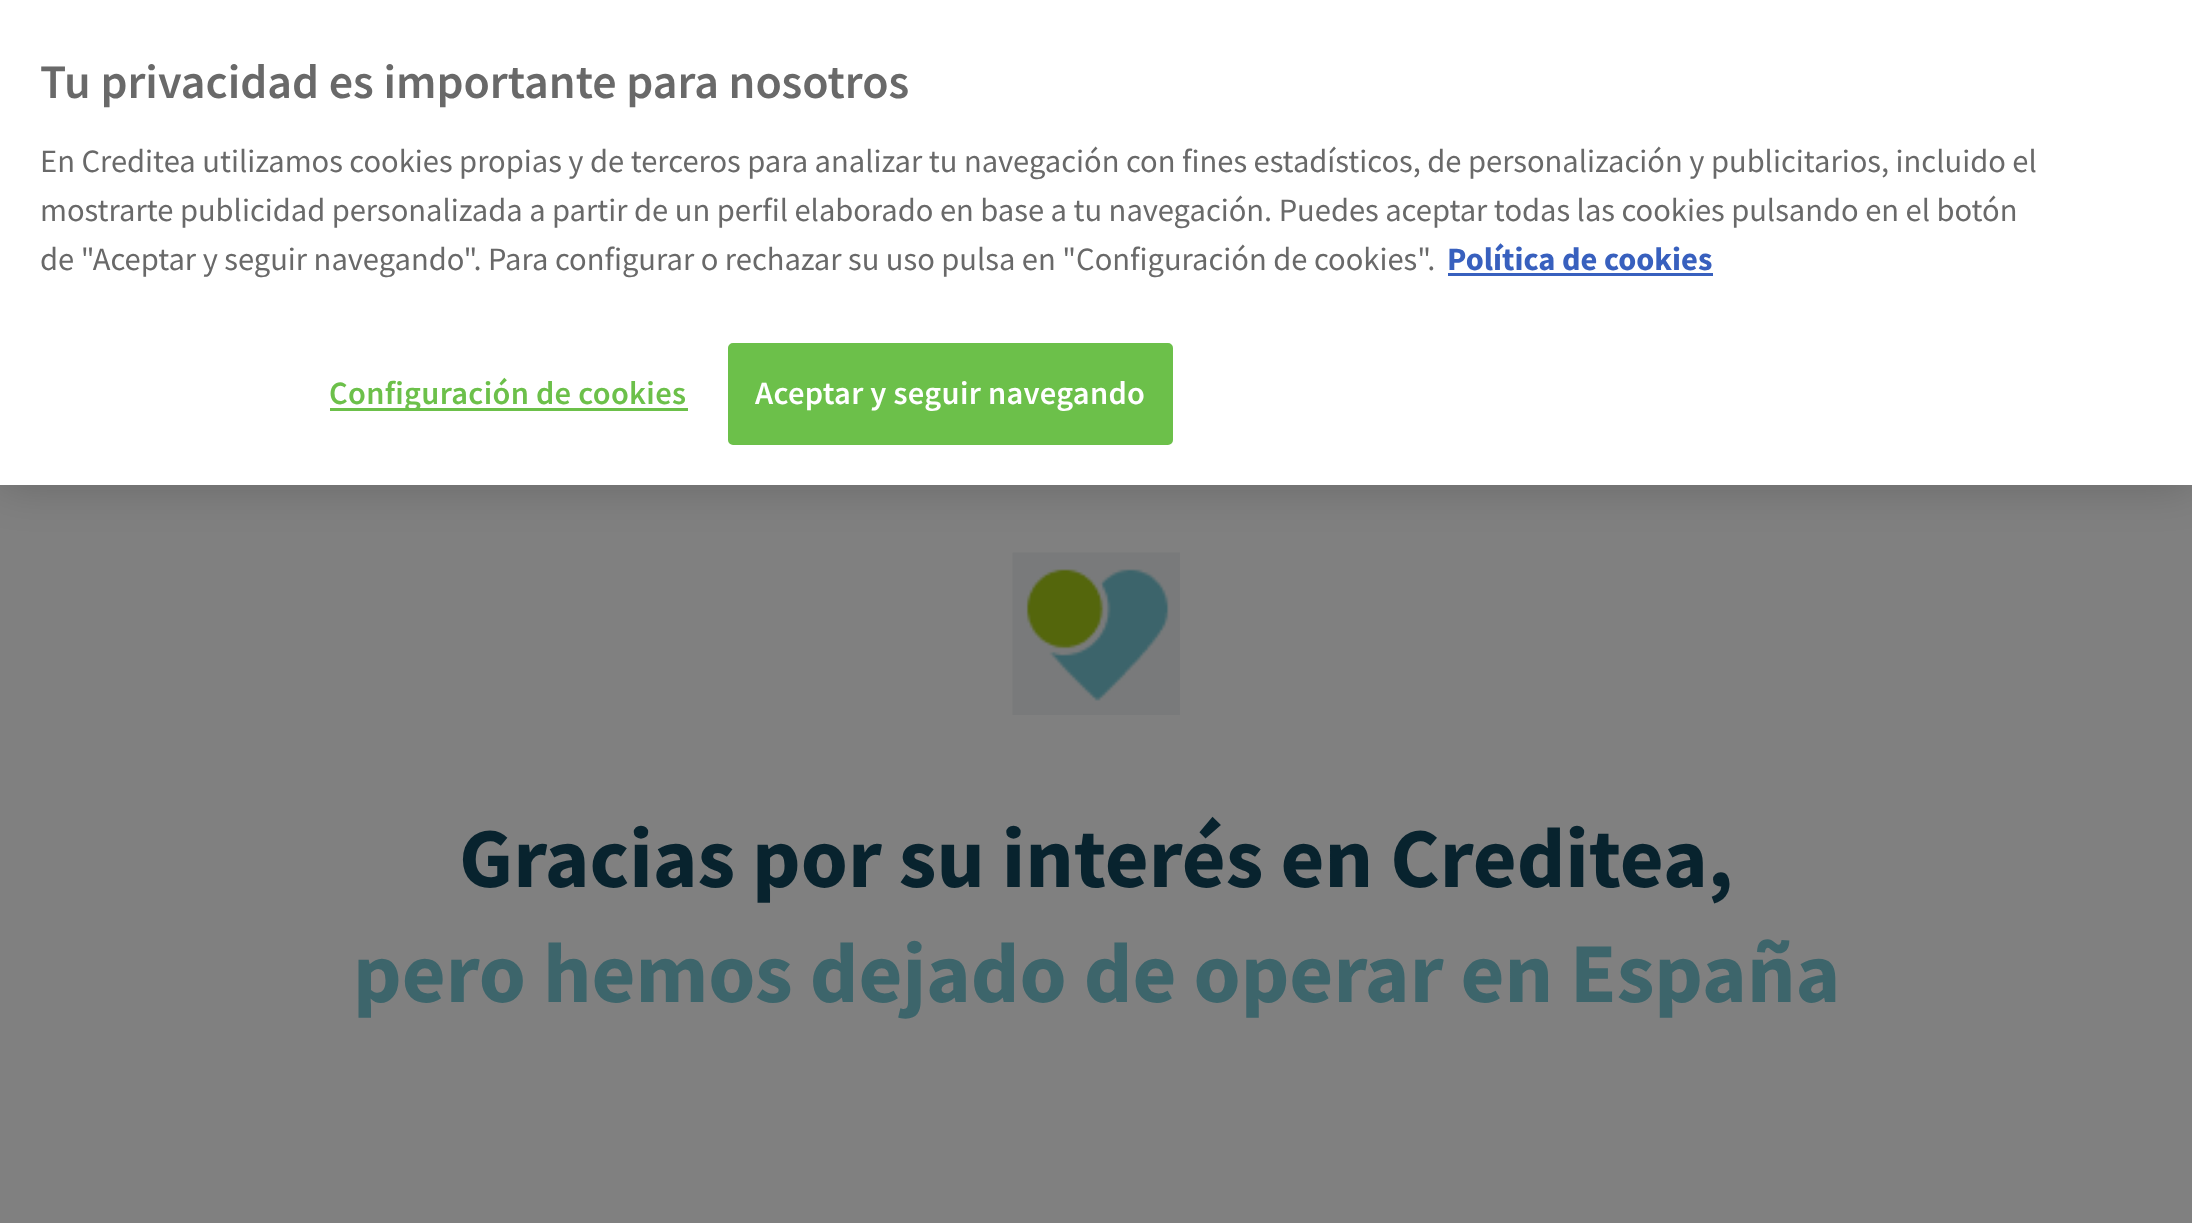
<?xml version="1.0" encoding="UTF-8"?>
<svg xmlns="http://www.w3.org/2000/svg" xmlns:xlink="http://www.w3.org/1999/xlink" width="2192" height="1223">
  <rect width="100%" height="100%" fill="#808080" />
  <image x="1012" y="552" width="168" height="163" xlink:href="image1.png" />
  <rect width="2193" height="485" fill="#000000" fill-opacity="0.2" filter="blur(22.5px)" />
  <rect width="2192" height="485" fill="#ffffff" />
  <rect x="1448" y="273" width="265" height="3" fill="#3860be" />
  <rect x="330" y="408" width="358" height="3" fill="#6cc04a" />
  <rect x="729.5" y="344.5" width="442" height="99" rx="3.5" fill="#6cc04a" stroke="#6cc04a" stroke-width="3" />
  <text x="40" y="98" style="font-family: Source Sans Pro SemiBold; font-size: 48px; font-weight: 600; fill: #696969">Tu privacidad es importante para nosotros</text>
  <text x="40" y="172" style="font-family: Source Sans Pro; font-size: 32.52px; fill: #696969">En Creditea utilizamos cookies propias y de terceros para analizar tu navegación con fines estadísticos, de personalización y publicitarios, incluido el</text>
  <text x="40" y="221" style="font-family: Source Sans Pro; font-size: 32.52px; fill: #696969">mostrarte publicidad personalizada a partir de un perfil elaborado en base a tu navegación. Puedes aceptar todas las cookies pulsando en el botón</text>
  <text x="40" y="270" style="font-family: Source Sans Pro; font-size: 32.52px; fill: #696969">de "Aceptar y seguir navegando". Para configurar o rechazar su uso pulsa en "Configuración de cookies".</text>
  <text x="1447" y="270" style="font-family: Source Sans Pro; font-size: 32.52px; font-weight: bold; fill: #3860be">Política de cookies</text>
  <text x="329" y="404" style="font-family: Source Sans Pro SemiBold; font-size: 32.52px; font-weight: 600; letter-spacing: 0.3px; fill: #6cc04a">Configuración de cookies</text>
  <text x="755" y="404" style="font-family: Source Sans Pro SemiBold; font-size: 32.52px; font-weight: 600; letter-spacing: 0.3px; fill: #ffffff">Aceptar y seguir navegando</text>
  <text x="459" y="887" style="font-family: Source Sans Pro; font-size: 85px; font-weight: bold; fill: #08232e">Gracias por su interés en Creditea,</text>
  <text x="353" y="1002" style="font-family: Source Sans Pro; font-size: 85px; font-weight: bold; fill: #3d656b">pero hemos dejado de operar en España</text>
</svg>
